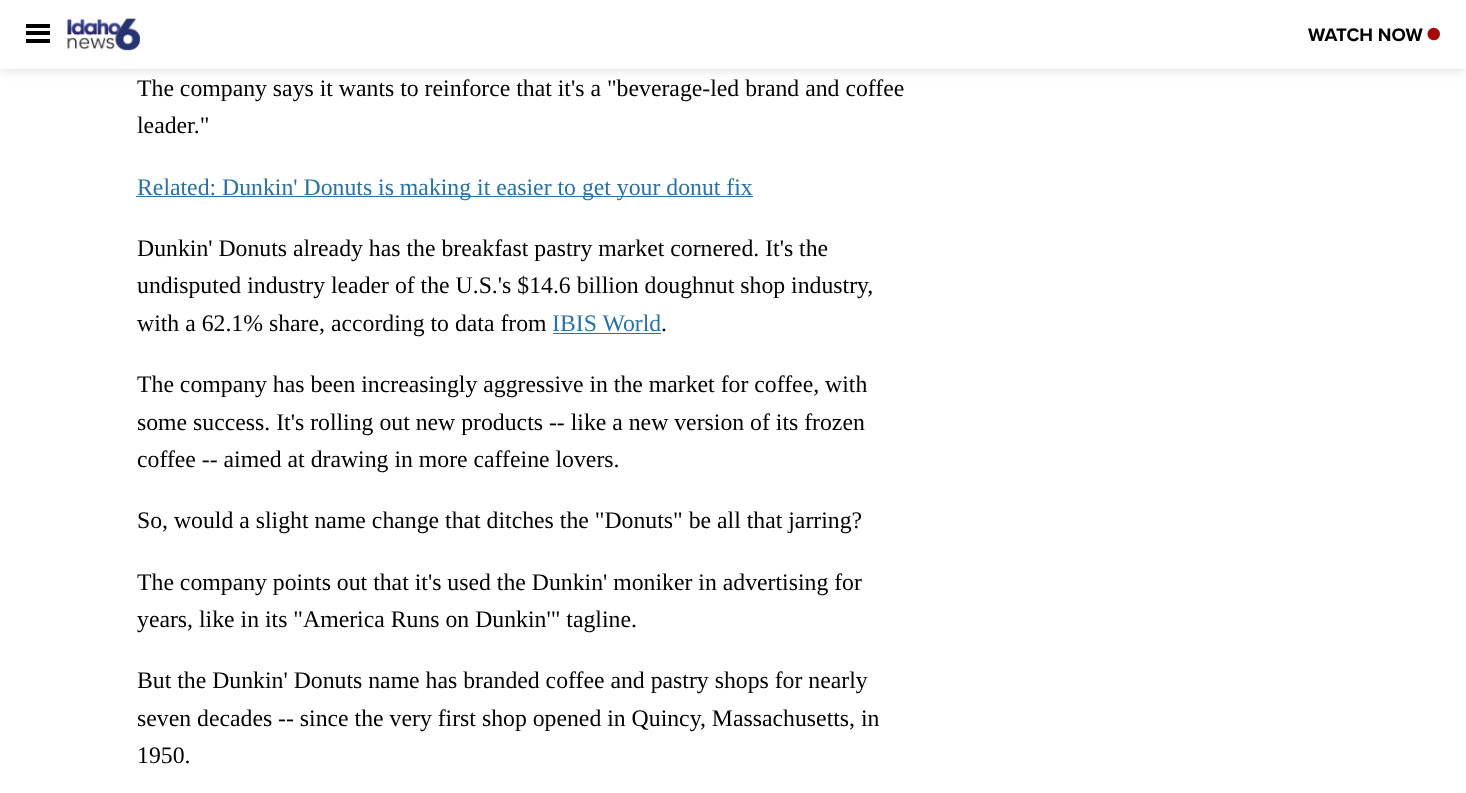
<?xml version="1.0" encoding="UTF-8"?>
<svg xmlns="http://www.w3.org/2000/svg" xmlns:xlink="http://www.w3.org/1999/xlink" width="1466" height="793">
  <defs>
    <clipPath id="clip1"><path d="M 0 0 h 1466 v 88 h -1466 z m 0 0 h 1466 v 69 h -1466 z" clip-rule="evenodd" /></clipPath>
  </defs>
  <rect width="100%" height="100%" fill="#ffffff" />
  <g clip-path="url(#clip1)">
    <rect width="1466" height="69" fill="#cccccc" fill-opacity="0.8" filter="blur(6px)" />
  </g>
  <rect y="68" width="1466" height="1" fill="#ffffff" fill-opacity="0.98" />
  <rect x="26" y="24" width="24" height="4" fill="#000000" />
  <rect x="26" y="31" width="24" height="4" fill="#000000" />
  <rect x="26" y="39" width="24" height="4" fill="#000000" />
  <image x="67" y="18" width="73" height="33" xlink:href="image1.png" />
  <image x="1427" y="27" width="13" height="14" xlink:href="image2.png" />
  <rect x="136" y="196" width="617" height="1" fill="#2972a3" />
  <rect x="553" y="333" width="108" height="1" fill="#2972a3" />
  <text x="1308" y="41" style="font-family: Proxima Nova; font-size: 18.75px; font-weight: bold; fill: #000000">WATCH NOW</text>
  <text x="137" y="96" style="font-family: Liberation Serif; font-size: 23.75px; fill: #000000">The company says it wants to reinforce that it's a "beverage-led brand and coffee</text>
  <text x="137" y="133" style="font-family: Liberation Serif; font-size: 23.75px; fill: #000000">leader."</text>
  <text x="137" y="195" style="font-family: Liberation Serif; font-size: 23.75px; fill: #2972a3">Related: Dunkin' Donuts is making it easier to get your donut fix</text>
  <text x="137" y="256" style="font-family: Liberation Serif; font-size: 23.75px; fill: #000000">Dunkin' Donuts already has the breakfast pastry market cornered. It's the</text>
  <text x="137" y="293" style="font-family: Liberation Serif; font-size: 23.75px; fill: #000000">undisputed industry leader of the U.S.'s $14.6 billion doughnut shop industry,</text>
  <text x="137" y="331" style="font-family: Liberation Serif; font-size: 23.75px; fill: #000000">with a 62.1% share, according to data from</text>
  <text x="552" y="331" style="font-family: Liberation Serif; font-size: 23.75px; fill: #2972a3">IBIS World</text>
  <text x="661" y="331" style="font-family: Liberation Serif; font-size: 23.75px; fill: #000000">.</text>
  <text x="137" y="392" style="font-family: Liberation Serif; font-size: 23.75px; fill: #000000">The company has been increasingly aggressive in the market for coffee, with</text>
  <text x="137" y="430" style="font-family: Liberation Serif; font-size: 23.75px; fill: #000000">some success. It's rolling out new products -- like a new version of its frozen</text>
  <text x="137" y="467" style="font-family: Liberation Serif; font-size: 23.75px; fill: #000000">coffee -- aimed at drawing in more caffeine lovers.</text>
  <text x="137" y="528" style="font-family: Liberation Serif; font-size: 23.75px; fill: #000000">So, would a slight name change that ditches the "Donuts" be all that jarring?</text>
  <text x="137" y="590" style="font-family: Liberation Serif; font-size: 23.75px; fill: #000000">The company points out that it's used the Dunkin' moniker in advertising for</text>
  <text x="137" y="627" style="font-family: Liberation Serif; font-size: 23.75px; fill: #000000">years, like in its "America Runs on Dunkin'" tagline.</text>
  <text x="137" y="688" style="font-family: Liberation Serif; font-size: 23.75px; fill: #000000">But the Dunkin' Donuts name has branded coffee and pastry shops for nearly</text>
  <text x="137" y="726" style="font-family: Liberation Serif; font-size: 23.75px; fill: #000000">seven decades -- since the very first shop opened in Quincy, Massachusetts, in</text>
  <text x="137" y="763" style="font-family: Liberation Serif; font-size: 23.75px; fill: #000000">1950.</text>
</svg>
